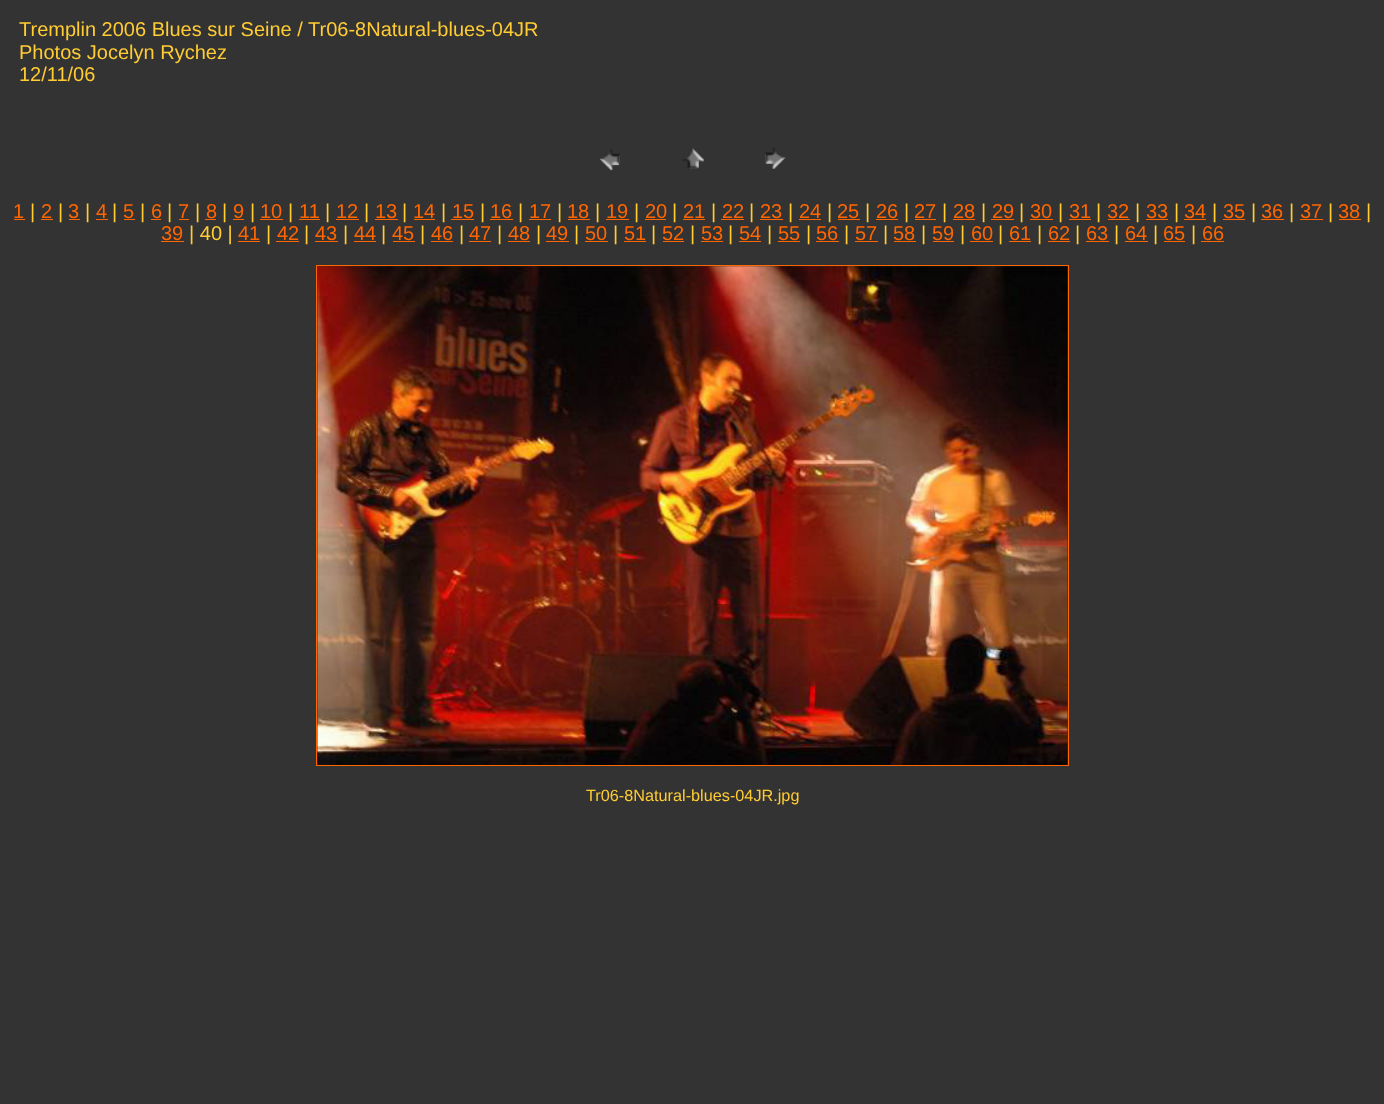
<?xml version="1.0" encoding="UTF-8"?>
<svg xmlns="http://www.w3.org/2000/svg" xmlns:xlink="http://www.w3.org/1999/xlink" width="1384" height="1104">
  <rect width="100%" height="100%" fill="#333333" />
  <image x="599" y="149" width="21" height="22" xlink:href="image1.png" />
  <image x="682" y="148" width="22" height="21" xlink:href="image2.png" />
  <image x="765" y="147" width="21" height="22" xlink:href="image3.png" />
  <rect x="14" y="219" width="11" height="1" fill="#ff6600" />
  <rect x="41" y="219" width="12" height="1" fill="#ff6600" />
  <rect x="69" y="219" width="11" height="1" fill="#ff6600" />
  <rect x="96" y="219" width="12" height="1" fill="#ff6600" />
  <rect x="124" y="219" width="11" height="1" fill="#ff6600" />
  <rect x="151" y="219" width="10" height="1" fill="#ff6600" />
  <rect x="179" y="219" width="10" height="1" fill="#ff6600" />
  <rect x="205" y="219" width="11" height="1" fill="#ff6600" />
  <rect x="233" y="219" width="11" height="1" fill="#ff6600" />
  <rect x="260" y="219" width="23" height="1" fill="#ff6600" />
  <rect x="299" y="219" width="21" height="1" fill="#ff6600" />
  <rect x="336" y="219" width="23" height="1" fill="#ff6600" />
  <rect x="375" y="219" width="23" height="1" fill="#ff6600" />
  <rect x="414" y="219" width="21" height="1" fill="#ff6600" />
  <rect x="451" y="219" width="23" height="1" fill="#ff6600" />
  <rect x="490" y="219" width="23" height="1" fill="#ff6600" />
  <rect x="529" y="219" width="22" height="1" fill="#ff6600" />
  <rect x="568" y="219" width="22" height="1" fill="#ff6600" />
  <rect x="606" y="219" width="23" height="1" fill="#ff6600" />
  <rect x="645" y="219" width="21" height="1" fill="#ff6600" />
  <rect x="683" y="219" width="22" height="1" fill="#ff6600" />
  <rect x="721" y="219" width="23" height="1" fill="#ff6600" />
  <rect x="760" y="219" width="23" height="1" fill="#ff6600" />
  <rect x="799" y="219" width="22" height="1" fill="#ff6600" />
  <rect x="838" y="219" width="22" height="1" fill="#ff6600" />
  <rect x="876" y="219" width="22" height="1" fill="#ff6600" />
  <rect x="915" y="219" width="21" height="1" fill="#ff6600" />
  <rect x="953" y="219" width="22" height="1" fill="#ff6600" />
  <rect x="991" y="219" width="23" height="1" fill="#ff6600" />
  <rect x="1030" y="219" width="23" height="1" fill="#ff6600" />
  <rect x="1069" y="219" width="22" height="1" fill="#ff6600" />
  <rect x="1108" y="219" width="22" height="1" fill="#ff6600" />
  <rect x="1146" y="219" width="22" height="1" fill="#ff6600" />
  <rect x="1184" y="219" width="22" height="1" fill="#ff6600" />
  <rect x="1223" y="219" width="22" height="1" fill="#ff6600" />
  <rect x="1261" y="219" width="23" height="1" fill="#ff6600" />
  <rect x="1300" y="219" width="23" height="1" fill="#ff6600" />
  <rect x="1339" y="219" width="22" height="1" fill="#ff6600" />
  <rect x="161" y="241" width="23" height="1" fill="#ff6600" />
  <rect x="238" y="241" width="22" height="1" fill="#ff6600" />
  <rect x="276" y="241" width="23" height="1" fill="#ff6600" />
  <rect x="315" y="241" width="23" height="1" fill="#ff6600" />
  <rect x="354" y="241" width="22" height="1" fill="#ff6600" />
  <rect x="393" y="241" width="22" height="1" fill="#ff6600" />
  <rect x="431" y="241" width="22" height="1" fill="#ff6600" />
  <rect x="469" y="241" width="22" height="1" fill="#ff6600" />
  <rect x="508" y="241" width="22" height="1" fill="#ff6600" />
  <rect x="546" y="241" width="23" height="1" fill="#ff6600" />
  <rect x="585" y="241" width="23" height="1" fill="#ff6600" />
  <rect x="624" y="241" width="22" height="1" fill="#ff6600" />
  <rect x="663" y="241" width="21" height="1" fill="#ff6600" />
  <rect x="701" y="241" width="22" height="1" fill="#ff6600" />
  <rect x="739" y="241" width="22" height="1" fill="#ff6600" />
  <rect x="778" y="241" width="22" height="1" fill="#ff6600" />
  <rect x="816" y="241" width="23" height="1" fill="#ff6600" />
  <rect x="855" y="241" width="23" height="1" fill="#ff6600" />
  <rect x="894" y="241" width="22" height="1" fill="#ff6600" />
  <rect x="933" y="241" width="21" height="1" fill="#ff6600" />
  <rect x="970" y="241" width="23" height="1" fill="#ff6600" />
  <rect x="1009" y="241" width="22" height="1" fill="#ff6600" />
  <rect x="1048" y="241" width="22" height="1" fill="#ff6600" />
  <rect x="1086" y="241" width="23" height="1" fill="#ff6600" />
  <rect x="1125" y="241" width="23" height="1" fill="#ff6600" />
  <rect x="1164" y="241" width="21" height="1" fill="#ff6600" />
  <rect x="1201" y="241" width="23" height="1" fill="#ff6600" />
  <rect x="316.5" y="265.5" width="752" height="500" fill="none" stroke="#ff6600" />
  <image x="317" y="266" width="751" height="499" xlink:href="image4.png" />
  <text x="19" y="36" style="font-family: Liberation Sans; font-size: 20px; fill: #ffcc33">Tremplin 2006 Blues sur Seine / Tr06-8Natural-blues-04JR</text>
  <text x="19" y="59" style="font-family: Liberation Sans; font-size: 20px; fill: #ffcc33">Photos Jocelyn Rychez</text>
  <text x="19" y="81" style="font-family: Liberation Sans; font-size: 20px; fill: #ffcc33">12/11/06</text>
  <text x="13" y="218" style="font-family: Liberation Sans; font-size: 20px; fill: #ff6600">1</text>
  <text x="30" y="218" style="font-family: Liberation Sans; font-size: 20px; fill: #ffcc33">|</text>
  <text x="41" y="218" style="font-family: Liberation Sans; font-size: 20px; fill: #ff6600">2</text>
  <text x="58" y="218" style="font-family: Liberation Sans; font-size: 20px; fill: #ffcc33">|</text>
  <text x="68" y="218" style="font-family: Liberation Sans; font-size: 20px; fill: #ff6600">3</text>
  <text x="85" y="218" style="font-family: Liberation Sans; font-size: 20px; fill: #ffcc33">|</text>
  <text x="96" y="218" style="font-family: Liberation Sans; font-size: 20px; fill: #ff6600">4</text>
  <text x="112" y="218" style="font-family: Liberation Sans; font-size: 20px; fill: #ffcc33">|</text>
  <text x="123" y="218" style="font-family: Liberation Sans; font-size: 20px; fill: #ff6600">5</text>
  <text x="140" y="218" style="font-family: Liberation Sans; font-size: 20px; fill: #ffcc33">|</text>
  <text x="151" y="218" style="font-family: Liberation Sans; font-size: 20px; fill: #ff6600">6</text>
  <text x="167" y="218" style="font-family: Liberation Sans; font-size: 20px; fill: #ffcc33">|</text>
  <text x="178" y="218" style="font-family: Liberation Sans; font-size: 20px; fill: #ff6600">7</text>
  <text x="195" y="218" style="font-family: Liberation Sans; font-size: 20px; fill: #ffcc33">|</text>
  <text x="206" y="218" style="font-family: Liberation Sans; font-size: 20px; fill: #ff6600">8</text>
  <text x="222" y="218" style="font-family: Liberation Sans; font-size: 20px; fill: #ffcc33">|</text>
  <text x="233" y="218" style="font-family: Liberation Sans; font-size: 20px; fill: #ff6600">9</text>
  <text x="250" y="218" style="font-family: Liberation Sans; font-size: 20px; fill: #ffcc33">|</text>
  <text x="260" y="218" style="font-family: Liberation Sans; font-size: 20px; fill: #ff6600">10</text>
  <text x="288" y="218" style="font-family: Liberation Sans; font-size: 20px; fill: #ffcc33">|</text>
  <text x="299" y="218" style="font-family: Liberation Sans; font-size: 20px; fill: #ff6600">11</text>
  <text x="325" y="218" style="font-family: Liberation Sans; font-size: 20px; fill: #ffcc33">|</text>
  <text x="336" y="218" style="font-family: Liberation Sans; font-size: 20px; fill: #ff6600">12</text>
  <text x="364" y="218" style="font-family: Liberation Sans; font-size: 20px; fill: #ffcc33">|</text>
  <text x="375" y="218" style="font-family: Liberation Sans; font-size: 20px; fill: #ff6600">13</text>
  <text x="402" y="218" style="font-family: Liberation Sans; font-size: 20px; fill: #ffcc33">|</text>
  <text x="413" y="218" style="font-family: Liberation Sans; font-size: 20px; fill: #ff6600">14</text>
  <text x="441" y="218" style="font-family: Liberation Sans; font-size: 20px; fill: #ffcc33">|</text>
  <text x="452" y="218" style="font-family: Liberation Sans; font-size: 20px; fill: #ff6600">15</text>
  <text x="480" y="218" style="font-family: Liberation Sans; font-size: 20px; fill: #ffcc33">|</text>
  <text x="490" y="218" style="font-family: Liberation Sans; font-size: 20px; fill: #ff6600">16</text>
  <text x="518" y="218" style="font-family: Liberation Sans; font-size: 20px; fill: #ffcc33">|</text>
  <text x="529" y="218" style="font-family: Liberation Sans; font-size: 20px; fill: #ff6600">17</text>
  <text x="557" y="218" style="font-family: Liberation Sans; font-size: 20px; fill: #ffcc33">|</text>
  <text x="567" y="218" style="font-family: Liberation Sans; font-size: 20px; fill: #ff6600">18</text>
  <text x="595" y="218" style="font-family: Liberation Sans; font-size: 20px; fill: #ffcc33">|</text>
  <text x="606" y="218" style="font-family: Liberation Sans; font-size: 20px; fill: #ff6600">19</text>
  <text x="634" y="218" style="font-family: Liberation Sans; font-size: 20px; fill: #ffcc33">|</text>
  <text x="645" y="218" style="font-family: Liberation Sans; font-size: 20px; fill: #ff6600">20</text>
  <text x="672" y="218" style="font-family: Liberation Sans; font-size: 20px; fill: #ffcc33">|</text>
  <text x="683" y="218" style="font-family: Liberation Sans; font-size: 20px; fill: #ff6600">21</text>
  <text x="711" y="218" style="font-family: Liberation Sans; font-size: 20px; fill: #ffcc33">|</text>
  <text x="722" y="218" style="font-family: Liberation Sans; font-size: 20px; fill: #ff6600">22</text>
  <text x="749" y="218" style="font-family: Liberation Sans; font-size: 20px; fill: #ffcc33">|</text>
  <text x="760" y="218" style="font-family: Liberation Sans; font-size: 20px; fill: #ff6600">23</text>
  <text x="788" y="218" style="font-family: Liberation Sans; font-size: 20px; fill: #ffcc33">|</text>
  <text x="799" y="218" style="font-family: Liberation Sans; font-size: 20px; fill: #ff6600">24</text>
  <text x="827" y="218" style="font-family: Liberation Sans; font-size: 20px; fill: #ffcc33">|</text>
  <text x="837" y="218" style="font-family: Liberation Sans; font-size: 20px; fill: #ff6600">25</text>
  <text x="865" y="218" style="font-family: Liberation Sans; font-size: 20px; fill: #ffcc33">|</text>
  <text x="876" y="218" style="font-family: Liberation Sans; font-size: 20px; fill: #ff6600">26</text>
  <text x="904" y="218" style="font-family: Liberation Sans; font-size: 20px; fill: #ffcc33">|</text>
  <text x="914" y="218" style="font-family: Liberation Sans; font-size: 20px; fill: #ff6600">27</text>
  <text x="942" y="218" style="font-family: Liberation Sans; font-size: 20px; fill: #ffcc33">|</text>
  <text x="953" y="218" style="font-family: Liberation Sans; font-size: 20px; fill: #ff6600">28</text>
  <text x="981" y="218" style="font-family: Liberation Sans; font-size: 20px; fill: #ffcc33">|</text>
  <text x="992" y="218" style="font-family: Liberation Sans; font-size: 20px; fill: #ff6600">29</text>
  <text x="1019" y="218" style="font-family: Liberation Sans; font-size: 20px; fill: #ffcc33">|</text>
  <text x="1030" y="218" style="font-family: Liberation Sans; font-size: 20px; fill: #ff6600">30</text>
  <text x="1058" y="218" style="font-family: Liberation Sans; font-size: 20px; fill: #ffcc33">|</text>
  <text x="1069" y="218" style="font-family: Liberation Sans; font-size: 20px; fill: #ff6600">31</text>
  <text x="1096" y="218" style="font-family: Liberation Sans; font-size: 20px; fill: #ffcc33">|</text>
  <text x="1107" y="218" style="font-family: Liberation Sans; font-size: 20px; fill: #ff6600">32</text>
  <text x="1135" y="218" style="font-family: Liberation Sans; font-size: 20px; fill: #ffcc33">|</text>
  <text x="1146" y="218" style="font-family: Liberation Sans; font-size: 20px; fill: #ff6600">33</text>
  <text x="1174" y="218" style="font-family: Liberation Sans; font-size: 20px; fill: #ffcc33">|</text>
  <text x="1184" y="218" style="font-family: Liberation Sans; font-size: 20px; fill: #ff6600">34</text>
  <text x="1212" y="218" style="font-family: Liberation Sans; font-size: 20px; fill: #ffcc33">|</text>
  <text x="1223" y="218" style="font-family: Liberation Sans; font-size: 20px; fill: #ff6600">35</text>
  <text x="1251" y="218" style="font-family: Liberation Sans; font-size: 20px; fill: #ffcc33">|</text>
  <text x="1261" y="218" style="font-family: Liberation Sans; font-size: 20px; fill: #ff6600">36</text>
  <text x="1289" y="218" style="font-family: Liberation Sans; font-size: 20px; fill: #ffcc33">|</text>
  <text x="1300" y="218" style="font-family: Liberation Sans; font-size: 20px; fill: #ff6600">37</text>
  <text x="1328" y="218" style="font-family: Liberation Sans; font-size: 20px; fill: #ffcc33">|</text>
  <text x="1338" y="218" style="font-family: Liberation Sans; font-size: 20px; fill: #ff6600">38</text>
  <text x="1366" y="218" style="font-family: Liberation Sans; font-size: 20px; fill: #ffcc33">|</text>
  <text x="161" y="240" style="font-family: Liberation Sans; font-size: 20px; fill: #ff6600">39</text>
  <text x="189" y="240" style="font-family: Liberation Sans; font-size: 20px; fill: #ffcc33">| 40 |</text>
  <text x="238" y="240" style="font-family: Liberation Sans; font-size: 20px; fill: #ff6600">41</text>
  <text x="266" y="240" style="font-family: Liberation Sans; font-size: 20px; fill: #ffcc33">|</text>
  <text x="277" y="240" style="font-family: Liberation Sans; font-size: 20px; fill: #ff6600">42</text>
  <text x="304" y="240" style="font-family: Liberation Sans; font-size: 20px; fill: #ffcc33">|</text>
  <text x="315" y="240" style="font-family: Liberation Sans; font-size: 20px; fill: #ff6600">43</text>
  <text x="343" y="240" style="font-family: Liberation Sans; font-size: 20px; fill: #ffcc33">|</text>
  <text x="354" y="240" style="font-family: Liberation Sans; font-size: 20px; fill: #ff6600">44</text>
  <text x="381" y="240" style="font-family: Liberation Sans; font-size: 20px; fill: #ffcc33">|</text>
  <text x="392" y="240" style="font-family: Liberation Sans; font-size: 20px; fill: #ff6600">45</text>
  <text x="420" y="240" style="font-family: Liberation Sans; font-size: 20px; fill: #ffcc33">|</text>
  <text x="431" y="240" style="font-family: Liberation Sans; font-size: 20px; fill: #ff6600">46</text>
  <text x="459" y="240" style="font-family: Liberation Sans; font-size: 20px; fill: #ffcc33">|</text>
  <text x="469" y="240" style="font-family: Liberation Sans; font-size: 20px; fill: #ff6600">47</text>
  <text x="497" y="240" style="font-family: Liberation Sans; font-size: 20px; fill: #ffcc33">|</text>
  <text x="508" y="240" style="font-family: Liberation Sans; font-size: 20px; fill: #ff6600">48</text>
  <text x="536" y="240" style="font-family: Liberation Sans; font-size: 20px; fill: #ffcc33">|</text>
  <text x="546" y="240" style="font-family: Liberation Sans; font-size: 20px; fill: #ff6600">49</text>
  <text x="574" y="240" style="font-family: Liberation Sans; font-size: 20px; fill: #ffcc33">|</text>
  <text x="585" y="240" style="font-family: Liberation Sans; font-size: 20px; fill: #ff6600">50</text>
  <text x="613" y="240" style="font-family: Liberation Sans; font-size: 20px; fill: #ffcc33">|</text>
  <text x="624" y="240" style="font-family: Liberation Sans; font-size: 20px; fill: #ff6600">51</text>
  <text x="651" y="240" style="font-family: Liberation Sans; font-size: 20px; fill: #ffcc33">|</text>
  <text x="662" y="240" style="font-family: Liberation Sans; font-size: 20px; fill: #ff6600">52</text>
  <text x="690" y="240" style="font-family: Liberation Sans; font-size: 20px; fill: #ffcc33">|</text>
  <text x="701" y="240" style="font-family: Liberation Sans; font-size: 20px; fill: #ff6600">53</text>
  <text x="728" y="240" style="font-family: Liberation Sans; font-size: 20px; fill: #ffcc33">|</text>
  <text x="739" y="240" style="font-family: Liberation Sans; font-size: 20px; fill: #ff6600">54</text>
  <text x="767" y="240" style="font-family: Liberation Sans; font-size: 20px; fill: #ffcc33">|</text>
  <text x="778" y="240" style="font-family: Liberation Sans; font-size: 20px; fill: #ff6600">55</text>
  <text x="806" y="240" style="font-family: Liberation Sans; font-size: 20px; fill: #ffcc33">|</text>
  <text x="816" y="240" style="font-family: Liberation Sans; font-size: 20px; fill: #ff6600">56</text>
  <text x="844" y="240" style="font-family: Liberation Sans; font-size: 20px; fill: #ffcc33">|</text>
  <text x="855" y="240" style="font-family: Liberation Sans; font-size: 20px; fill: #ff6600">57</text>
  <text x="883" y="240" style="font-family: Liberation Sans; font-size: 20px; fill: #ffcc33">|</text>
  <text x="893" y="240" style="font-family: Liberation Sans; font-size: 20px; fill: #ff6600">58</text>
  <text x="921" y="240" style="font-family: Liberation Sans; font-size: 20px; fill: #ffcc33">|</text>
  <text x="932" y="240" style="font-family: Liberation Sans; font-size: 20px; fill: #ff6600">59</text>
  <text x="960" y="240" style="font-family: Liberation Sans; font-size: 20px; fill: #ffcc33">|</text>
  <text x="971" y="240" style="font-family: Liberation Sans; font-size: 20px; fill: #ff6600">60</text>
  <text x="998" y="240" style="font-family: Liberation Sans; font-size: 20px; fill: #ffcc33">|</text>
  <text x="1009" y="240" style="font-family: Liberation Sans; font-size: 20px; fill: #ff6600">61</text>
  <text x="1037" y="240" style="font-family: Liberation Sans; font-size: 20px; fill: #ffcc33">|</text>
  <text x="1048" y="240" style="font-family: Liberation Sans; font-size: 20px; fill: #ff6600">62</text>
  <text x="1075" y="240" style="font-family: Liberation Sans; font-size: 20px; fill: #ffcc33">|</text>
  <text x="1086" y="240" style="font-family: Liberation Sans; font-size: 20px; fill: #ff6600">63</text>
  <text x="1114" y="240" style="font-family: Liberation Sans; font-size: 20px; fill: #ffcc33">|</text>
  <text x="1125" y="240" style="font-family: Liberation Sans; font-size: 20px; fill: #ff6600">64</text>
  <text x="1153" y="240" style="font-family: Liberation Sans; font-size: 20px; fill: #ffcc33">|</text>
  <text x="1163" y="240" style="font-family: Liberation Sans; font-size: 20px; fill: #ff6600">65</text>
  <text x="1191" y="240" style="font-family: Liberation Sans; font-size: 20px; fill: #ffcc33">|</text>
  <text x="1202" y="240" style="font-family: Liberation Sans; font-size: 20px; fill: #ff6600">66</text>
  <text x="586" y="801" style="font-family: Liberation Sans; font-size: 16.25px; fill: #ffcc33">Tr06-8Natural-blues-04JR.jpg</text>
</svg>
